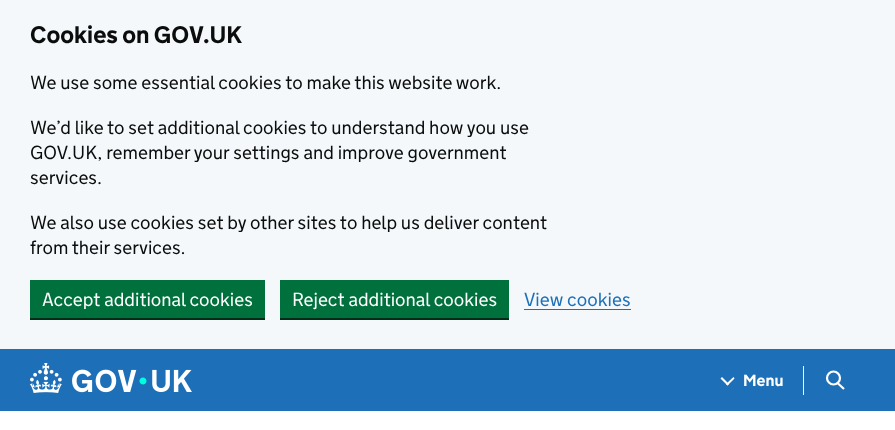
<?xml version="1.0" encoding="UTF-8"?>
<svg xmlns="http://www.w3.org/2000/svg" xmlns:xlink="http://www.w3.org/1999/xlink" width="895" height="430">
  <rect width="100%" height="100%" fill="#ffffff" />
  <rect width="895" height="349" fill="#f4f8fb" />
  <rect x="30" y="318" width="235" height="2" fill="#002d18" />
  <rect x="30" y="280" width="235" height="38" fill="#00703c" />
  <rect x="280" y="318" width="229" height="2" fill="#002d18" />
  <rect x="280" y="280" width="229" height="38" fill="#00703c" />
  <rect x="524" y="309" width="107" height="1" fill="#1d70b8" />
  <rect y="349" width="895" height="62" fill="#1d70b8" />
  <image x="30" y="363" width="162" height="30" xlink:href="image1.png" />
  <rect x="803" y="366" width="1" height="29" fill="#f4f8fb" />
  <path d="M 733.5 377 l 1 1.5 l -7 7 l -1.5 -1.5 z" fill="#ffffff" />
  <path d="M 722 377 l 7 7 l -1.5 1.5 l -7 -7 z" fill="#ffffff" />
  <circle cx="833.5" cy="378" r="6.5" fill="none" stroke="#ffffff" stroke-width="2.2" />
  <path d="M 837.5 383 l 6.5 6" fill="none" stroke="#ffffff" stroke-width="2.2" />
  <text x="30" y="43" style="font-family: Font; font-size: 24px; font-weight: bold; fill: #0b0c0c">Cookies on GOV.UK</text>
  <text x="30" y="89" style="font-family: Font; font-size: 19px; font-weight: 300; fill: #0b0c0c">We use some essential cookies to make this website work.</text>
  <text x="30" y="134" style="font-family: Font; font-size: 19px; font-weight: 300; fill: #0b0c0c">We’d like to set additional cookies to understand how you use</text>
  <text x="30" y="159" style="font-family: Font; font-size: 19px; font-weight: 300; fill: #0b0c0c">GOV.UK, remember your settings and improve government</text>
  <text x="30" y="184" style="font-family: Font; font-size: 19px; font-weight: 300; fill: #0b0c0c">services.</text>
  <text x="30" y="229" style="font-family: Font; font-size: 19px; font-weight: 300; fill: #0b0c0c">We also use cookies set by other sites to help us deliver content</text>
  <text x="30" y="254" style="font-family: Font; font-size: 19px; font-weight: 300; fill: #0b0c0c">from their services.</text>
  <text x="42" y="306" style="font-family: Font; font-size: 19px; font-weight: 300; fill: #ffffff">Accept additional cookies</text>
  <text x="292" y="306" style="font-family: Font; font-size: 19px; font-weight: 300; fill: #ffffff">Reject additional cookies</text>
  <text x="524" y="306" style="font-family: Font; font-size: 19px; font-weight: 300; fill: #1d70b8">View cookies</text>
  <text x="743" y="386" style="font-family: Font; font-size: 16px; font-weight: bold; fill: #ffffff">Menu</text>
</svg>
